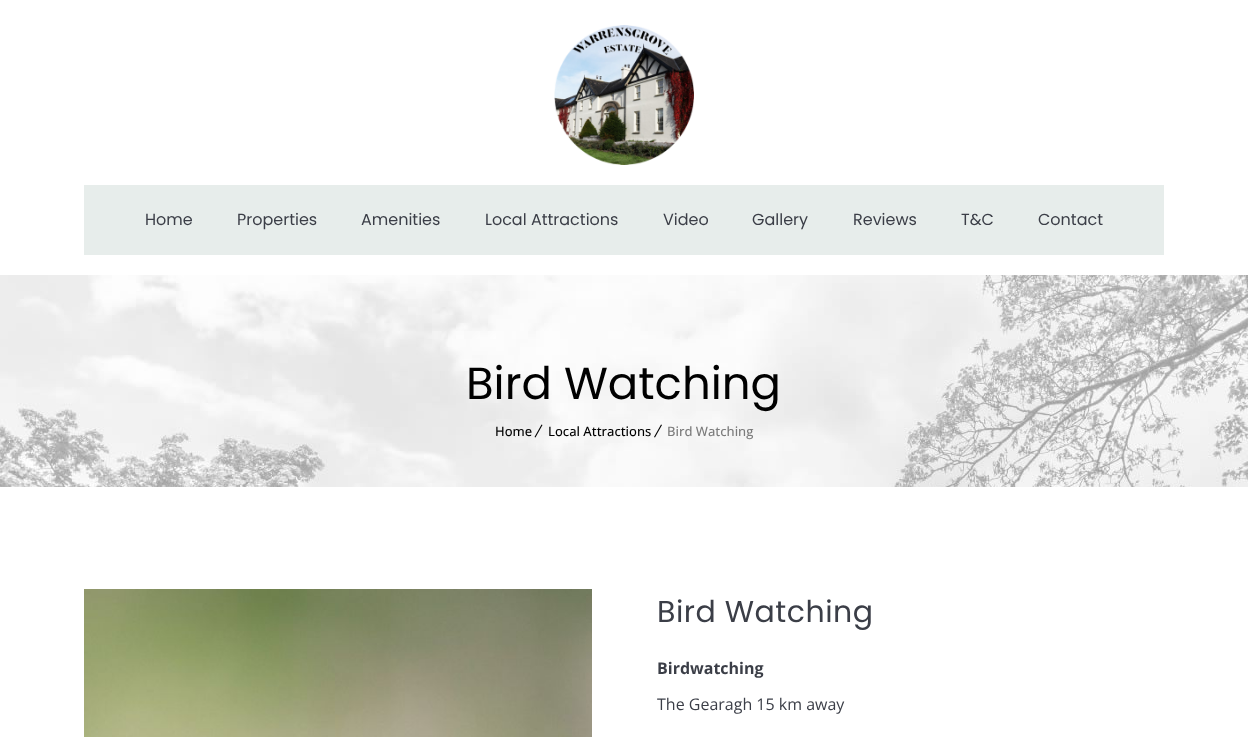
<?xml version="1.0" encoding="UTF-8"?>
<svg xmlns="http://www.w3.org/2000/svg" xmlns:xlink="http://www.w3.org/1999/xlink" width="1248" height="737">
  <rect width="100%" height="100%" fill="#ffffff" />
  <image x="554" y="25" width="140" height="140" xlink:href="image1.png" />
  <rect x="84" y="185" width="1080" height="70" fill="#e7edeb" />
  <image x="0" y="275" width="1248" height="212" xlink:href="image2.png" />
  <path d="M 541.5 424.5 l 1 0.5 l -7 12.5 l -1 -0.5 z" fill="#000000" />
  <path d="M 661 424.5 l 1 0.5 l -7 12.5 l -1 -0.5 z" fill="#000000" />
  <image x="84" y="589" width="508" height="148" xlink:href="image3.png" />
  <text x="145" y="225" style="font-family: Poppins; font-size: 16px; fill: #3b3e47">Home</text>
  <text x="237" y="225" style="font-family: Poppins; font-size: 16px; fill: #3b3e47">Properties</text>
  <text x="361" y="225" style="font-family: Poppins; font-size: 16px; fill: #3b3e47">Amenities</text>
  <text x="485" y="225" style="font-family: Poppins; font-size: 16px; fill: #3b3e47">Local Attractions</text>
  <text x="663" y="225" style="font-family: Poppins; font-size: 16px; fill: #3b3e47">Video</text>
  <text x="752" y="225" style="font-family: Poppins; font-size: 16px; fill: #3b3e47">Gallery</text>
  <text x="853" y="225" style="font-family: Poppins; font-size: 16px; fill: #3b3e47">Reviews</text>
  <text x="961" y="225" style="font-family: Poppins; font-size: 16px; fill: #3b3e47">T&amp;C</text>
  <text x="1038" y="225" style="font-family: Poppins; font-size: 16px; fill: #3b3e47">Contact</text>
  <text x="466" y="399" style="font-family: Poppins; font-size: 45px; fill: #000000">Bird Watching</text>
  <text x="495" y="436" style="font-family: Open Sans; font-size: 13px; font-weight: 500; fill: #000000">Home</text>
  <text x="548" y="436" style="font-family: Open Sans; font-size: 13px; font-weight: 500; fill: #000000">Local Attractions</text>
  <text x="667" y="436" style="font-family: Open Sans; font-size: 13px; font-weight: 500; fill: #7b7b7b">Bird Watching</text>
  <text x="657" y="622" style="font-family: Poppins; font-size: 30px; letter-spacing: 0.5px; fill: #3b3e47">Bird Watching</text>
  <text x="657" y="674" style="font-family: Open Sans; font-size: 16px; font-weight: bold; fill: #3b3e47">Birdwatching</text>
  <text x="657" y="710" style="font-family: Open Sans; font-size: 16px; fill: #3b3e47">The Gearagh 15 km away</text>
</svg>
